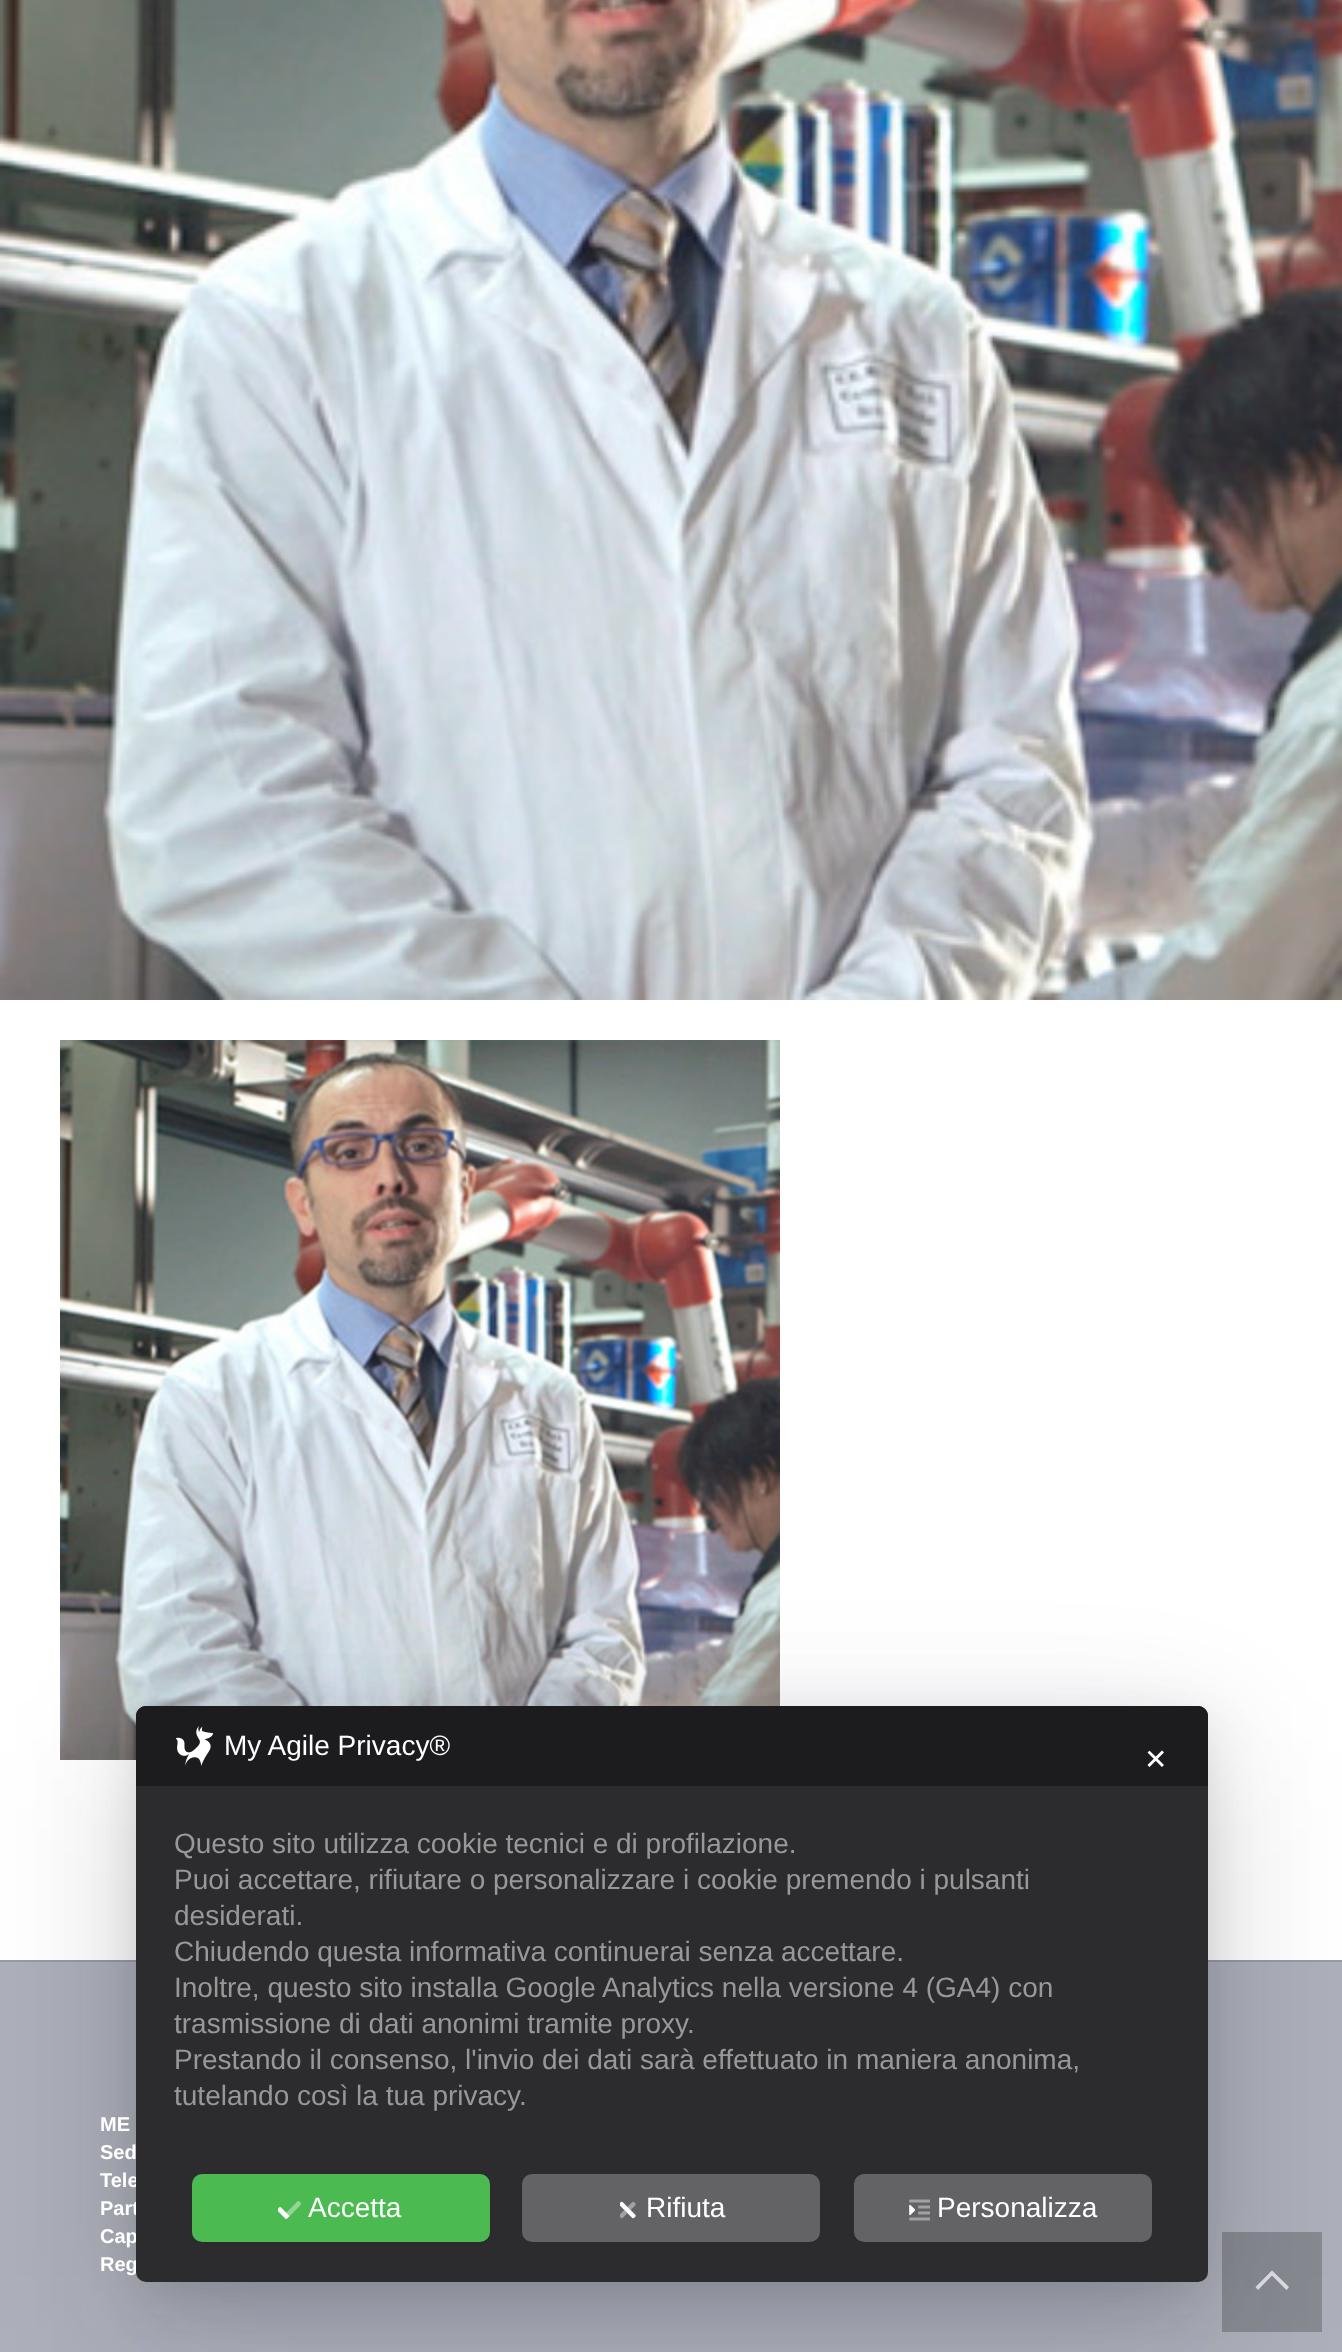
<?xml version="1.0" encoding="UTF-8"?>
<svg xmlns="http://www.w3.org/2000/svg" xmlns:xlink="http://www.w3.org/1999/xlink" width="1342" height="2352">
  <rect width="100%" height="100%" fill="#ffffff" />
  <image x="0" y="0" width="1342" height="1000" xlink:href="image1.png" />
  <image x="60" y="1040" width="720" height="720" xlink:href="image2.png" />
  <rect y="1962" width="1342" height="390" fill="#adb0ba" />
  <rect y="1960" width="1342" height="2" fill="#959aa7" />
  <rect x="1222" y="2232" width="100" height="100" fill="#888a92" />
  <path d="M 1286.5 2290 l -14.5 -14.5 l -14 14.5 l -2.5 -3 l 16.5 -16.5 l 17 16.5 z" fill="#dedfe3" />
  <rect x="136" y="1754" width="1072" height="576" rx="10" fill="#11111a" fill-opacity="0.1" filter="blur(80px)" />
  <rect x="136" y="1738" width="1072" height="576" rx="10" fill="#11111a" fill-opacity="0.1" filter="blur(56px)" />
  <rect x="136" y="1722" width="1072" height="576" rx="10" fill="#11111a" fill-opacity="0.1" filter="blur(24px)" />
  <text x="100" y="2131" style="font-family: Liberation Sans; font-size: 20px; font-weight: bold; fill: #ffffff">ME</text>
  <text x="100" y="2159" style="font-family: Liberation Sans; font-size: 20px; font-weight: bold; fill: #ffffff">Sed</text>
  <text x="100" y="2187" style="font-family: Liberation Sans; font-size: 20px; font-weight: bold; fill: #ffffff">Tele</text>
  <text x="100" y="2215" style="font-family: Liberation Sans; font-size: 20px; font-weight: bold; fill: #ffffff">Part</text>
  <text x="100" y="2243" style="font-family: Liberation Sans; font-size: 20px; font-weight: bold; fill: #ffffff">Cap</text>
  <text x="100" y="2271" style="font-family: Liberation Sans; font-size: 20px; font-weight: bold; fill: #ffffff">Reg</text>
  <rect x="136" y="1706" width="1072" height="576" rx="10" fill="#2c2c2e" />
  <path d="M 146 1706 h 1052 c 5.5 0 10 4.5 10 10 v 70 h -1072 v -70 c 0 -5.5 4.5 -10 10 -10 z" fill="#1c1c1e" />
  <image x="176" y="1726" width="37" height="40" xlink:href="image3.png" />
  <text x="224" y="1755" style="font-family: Liberation Sans; font-size: 28px; fill: #ffffff">My Agile Privacy®</text>
  <text x="1144" y="1769" style="font-family: DejaVu Sans; font-size: 28px; fill: #ffffff">✕</text>
  <text x="174" y="1853" style="font-family: Liberation Sans; font-size: 28px; fill: #989899">Questo sito utilizza cookie tecnici e di profilazione.</text>
  <text x="174" y="1889" style="font-family: Liberation Sans; font-size: 28px; fill: #989899">Puoi accettare, rifiutare o personalizzare i cookie premendo i pulsanti</text>
  <text x="174" y="1925" style="font-family: Liberation Sans; font-size: 28px; fill: #989899">desiderati.</text>
  <text x="174" y="1961" style="font-family: Liberation Sans; font-size: 28px; fill: #989899">Chiudendo questa informativa continuerai senza accettare.</text>
  <text x="174" y="1997" style="font-family: Liberation Sans; font-size: 28px; fill: #989899">Inoltre, questo sito installa Google Analytics nella versione 4 (GA4) con</text>
  <text x="174" y="2033" style="font-family: Liberation Sans; font-size: 28px; fill: #989899">trasmissione di dati anonimi tramite proxy.</text>
  <text x="174" y="2069" style="font-family: Liberation Sans; font-size: 28px; fill: #989899">Prestando il consenso, l'invio dei dati sarà effettuato in maniera anonima,</text>
  <text x="174" y="2105" style="font-family: Liberation Sans; font-size: 28px; fill: #989899">tutelando così la tua privacy.</text>
  <rect x="192" y="2174" width="298" height="68" rx="10" fill="#4aba51" />
  <image x="278" y="2201" width="24" height="18" xlink:href="image4.png" />
  <text x="308" y="2217" style="font-family: Liberation Sans; font-size: 28px; fill: #ffffff">Accetta</text>
  <rect x="522" y="2174" width="298" height="68" rx="10" fill="#636366" />
  <image x="620" y="2201" width="16" height="18" xlink:href="image5.png" />
  <text x="646" y="2217" style="font-family: Liberation Sans; font-size: 28px; fill: #ffffff">Rifiuta</text>
  <rect x="854" y="2174" width="298" height="68" rx="10" fill="#636366" />
  <image x="909" y="2199" width="21" height="22" xlink:href="image6.png" />
  <text x="937" y="2217" style="font-family: Liberation Sans; font-size: 28px; fill: #ffffff">Personalizza</text>
</svg>
